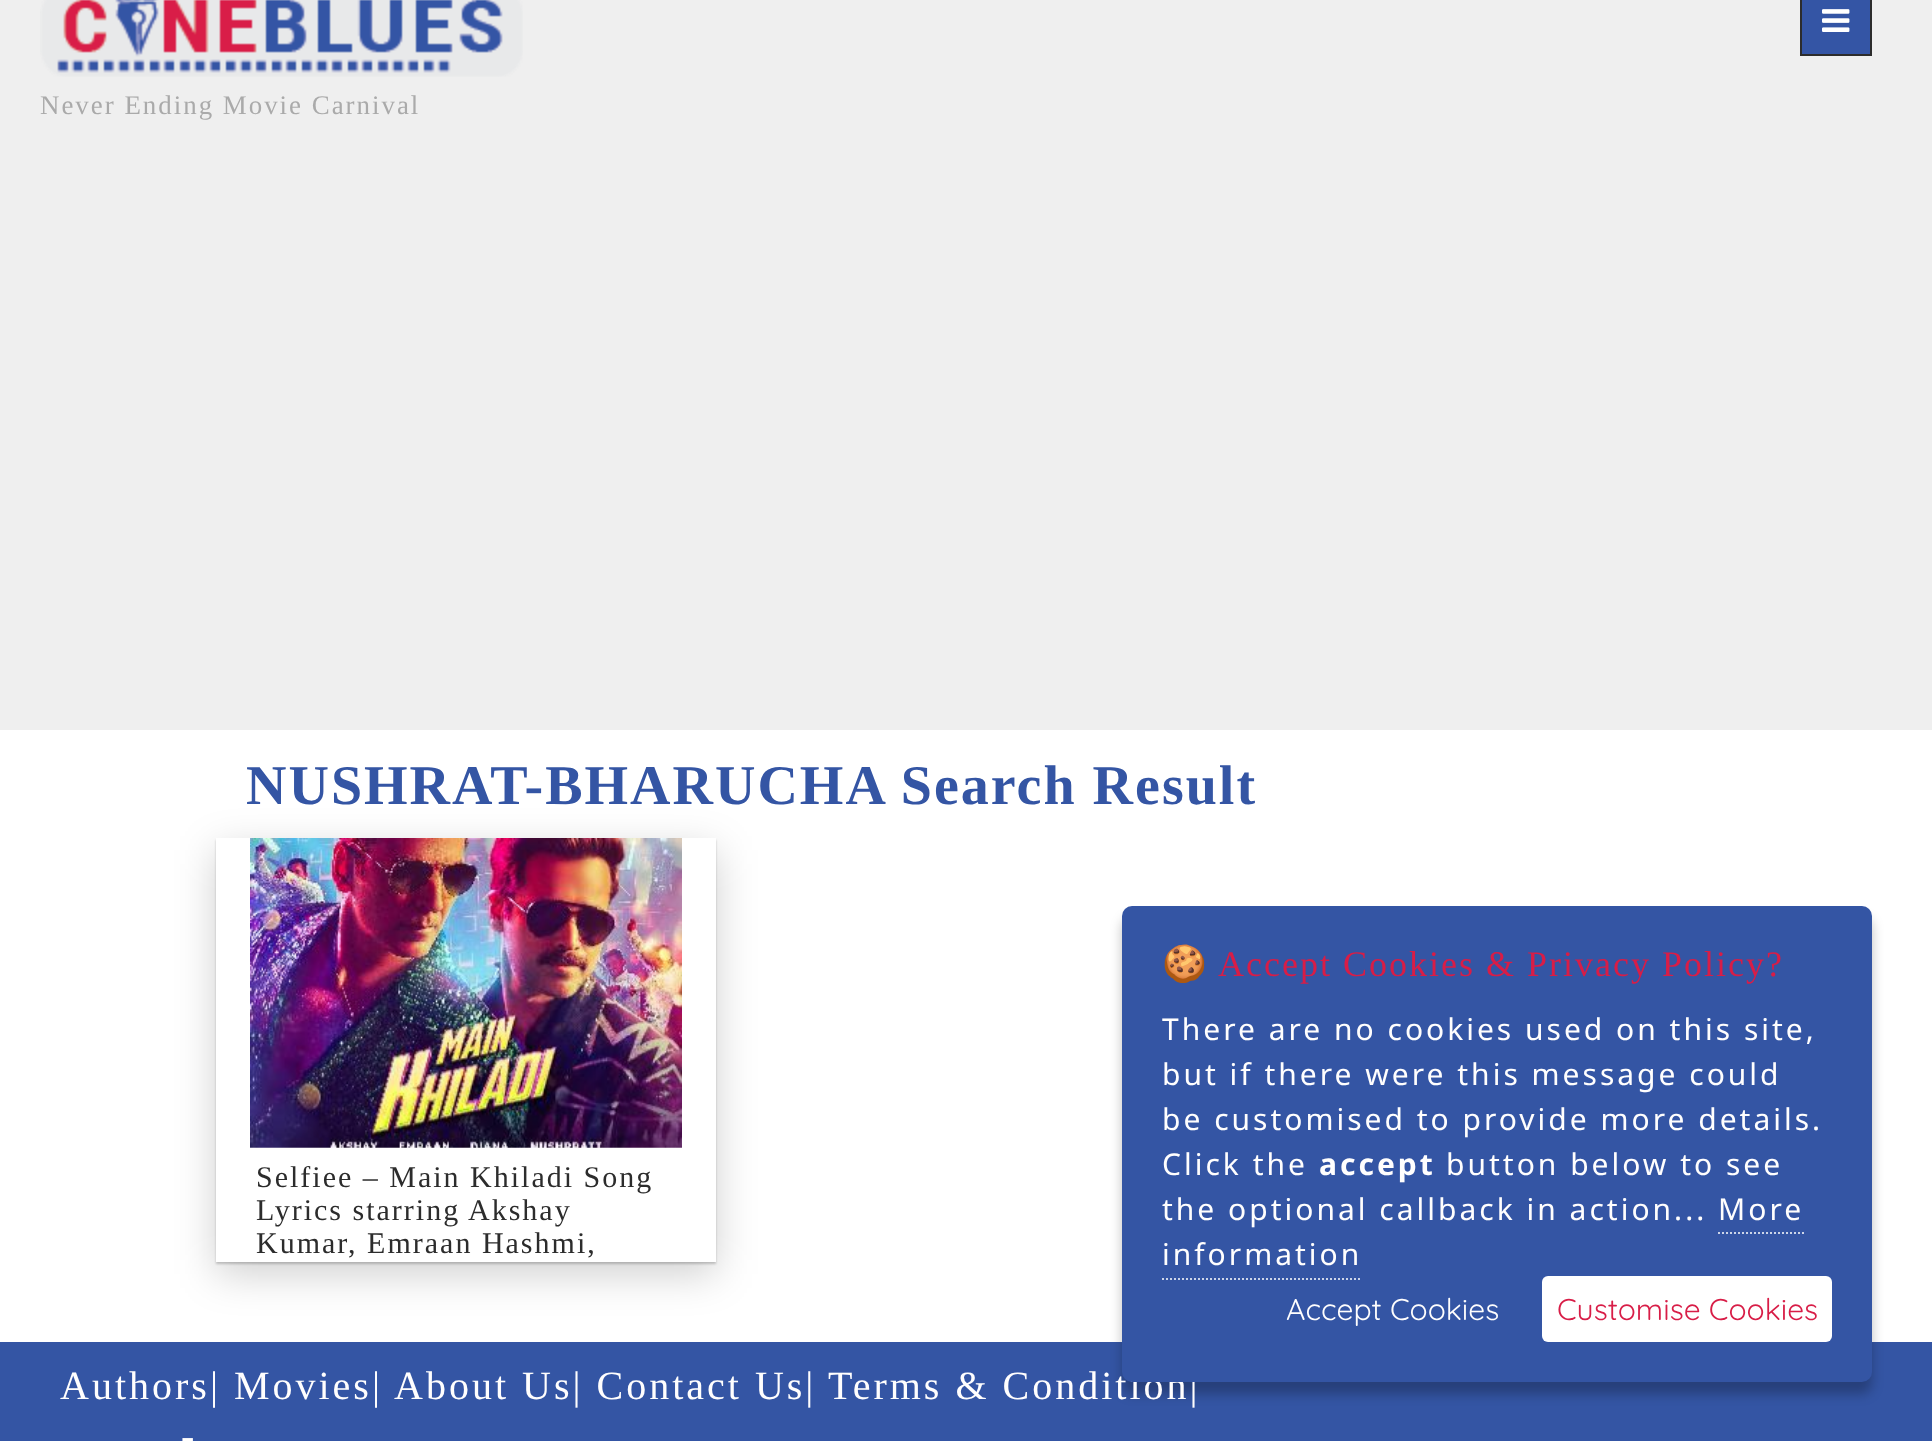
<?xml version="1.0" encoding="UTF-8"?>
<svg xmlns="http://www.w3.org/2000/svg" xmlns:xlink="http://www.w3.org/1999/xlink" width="1932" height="1441">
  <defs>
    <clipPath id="clip1"><path d="M 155 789 h 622 v 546 h -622 z m 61 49 h 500 v 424 h -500 z" clip-rule="evenodd" /></clipPath>
    <clipPath id="clip2"><path d="M 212 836 h 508 v 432 h -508 z m 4 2 h 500 v 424 h -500 z" clip-rule="evenodd" /></clipPath>
  </defs>
  <rect width="100%" height="100%" fill="#efefef" />
  <rect x="1801" y="-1" width="70" height="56" fill="#3455a5" stroke="#2c2c2c" stroke-width="2" />
  <image x="1822" y="9" width="28" height="23" xlink:href="image1.png" />
  <image x="40" y="0" width="483" height="77" xlink:href="image2.png" />
  <rect y="730" width="1932" height="612" fill="#ffffff" />
  <g clip-path="url(#clip1)">
    <rect x="216" y="850" width="500" height="424" fill="#000000" fill-opacity="0.19" filter="blur(20px)" />
  </g>
  <g clip-path="url(#clip2)">
    <rect x="216" y="840" width="500" height="424" fill="#000000" fill-opacity="0.2" filter="blur(1px)" />
  </g>
  <image x="250" y="838" width="432" height="310" xlink:href="image3.png" />
  <rect y="1342" width="1932" height="99" fill="#3455a4" />
  <rect x="1122" y="918" width="750" height="476" rx="10" fill="#000000" fill-opacity="0.25" filter="blur(6px)" />
  <text x="40" y="114" style="font-family: Liberation Serif; font-size: 26.9px; letter-spacing: 2px; fill: #aaaaaa">Never Ending Movie Carnival</text>
  <text x="246" y="804" style="font-family: Liberation Serif; font-size: 56px; font-weight: bold; letter-spacing: 2px; fill: #3455a4">NUSHRAT-BHARUCHA Search Result</text>
  <text x="256" y="1187" style="font-family: Liberation Serif; font-size: 30px; letter-spacing: 2px; fill: #2c2c2c">Selfiee – Main Khiladi Song</text>
  <text x="256" y="1220" style="font-family: Liberation Serif; font-size: 30px; letter-spacing: 2px; fill: #2c2c2c">Lyrics starring Akshay</text>
  <text x="256" y="1253" style="font-family: Liberation Serif; font-size: 30px; letter-spacing: 2px; fill: #2c2c2c">Kumar, Emraan Hashmi,</text>
  <text x="60" y="1399" style="font-family: Liberation Serif; font-size: 40px; letter-spacing: 3px; fill: #fffefe">Authors| Movies|</text>
  <text x="394" y="1399" style="font-family: Liberation Serif; font-size: 40px; letter-spacing: 3px; fill: #fffefe">About Us| Contact Us|</text>
  <text x="828" y="1399" style="font-family: Liberation Serif; font-size: 40px; letter-spacing: 3px; fill: #fffefe">Terms &amp; Condition|</text>
  <rect x="1122" y="906" width="750" height="476" rx="10" fill="#3455a4" />
  <rect x="1542" y="1276" width="290" height="66" rx="6" fill="#ffffff" />
  <text x="1557" y="1320" style="font-family: Quicksand; font-size: 30px; fill: #d81d47">Customise Cookies</text>
  <text x="1286" y="1320" style="font-family: Quicksand; font-size: 30px; fill: #fffefe">Accept Cookies</text>
  <text x="1162" y="1265" style="font-family: Noto Sans; font-size: 30px; letter-spacing: 3px; fill: #fffefe">information</text>
  <path d="M 1162 1279 h 200" fill="none" stroke="#ccd5e8" stroke-width="2" stroke-dasharray="2 2" />
  <path d="M 1718 1233 h 86" fill="none" stroke="#ccd5e8" stroke-width="2" stroke-dasharray="2 2" />
  <text x="1162" y="1220" style="font-family: Noto Sans; font-size: 30px; letter-spacing: 3px; fill: #fffefe">the optional callback in action... More</text>
  <text x="1446" y="1175" style="font-family: Noto Sans; font-size: 30px; letter-spacing: 3px; fill: #fffefe">button below to see</text>
  <text x="1319" y="1175" style="font-family: Noto Sans; font-size: 30px; font-weight: bold; letter-spacing: 3px; fill: #fffefe">accept</text>
  <text x="1162" y="1175" style="font-family: Noto Sans; font-size: 30px; letter-spacing: 3px; fill: #fffefe">Click the</text>
  <text x="1162" y="1130" style="font-family: Noto Sans; font-size: 30px; letter-spacing: 3px; fill: #fffefe">be customised to provide more details.</text>
  <text x="1162" y="1085" style="font-family: Noto Sans; font-size: 30px; letter-spacing: 3px; fill: #fffefe">but if there were this message could</text>
  <text x="1162" y="1040" style="font-family: Noto Sans; font-size: 30px; letter-spacing: 3px; fill: #fffefe">There are no cookies used on this site,</text>
  <text x="1218" y="976" style="font-family: Liberation Serif; font-size: 36px; letter-spacing: 2px; fill: #d81d47">Accept Cookies &amp; Privacy Policy?</text>
  <text x="1162" y="976" style="font-family: Noto Color Emoji; font-size: 36px; letter-spacing: 2px; fill: #d81d47">🍪</text>
  <text x="181" y="1449" style="font-family: Liberation Serif; font-size: 40px; letter-spacing: 3px; fill: #fffefe">-</text>
</svg>
